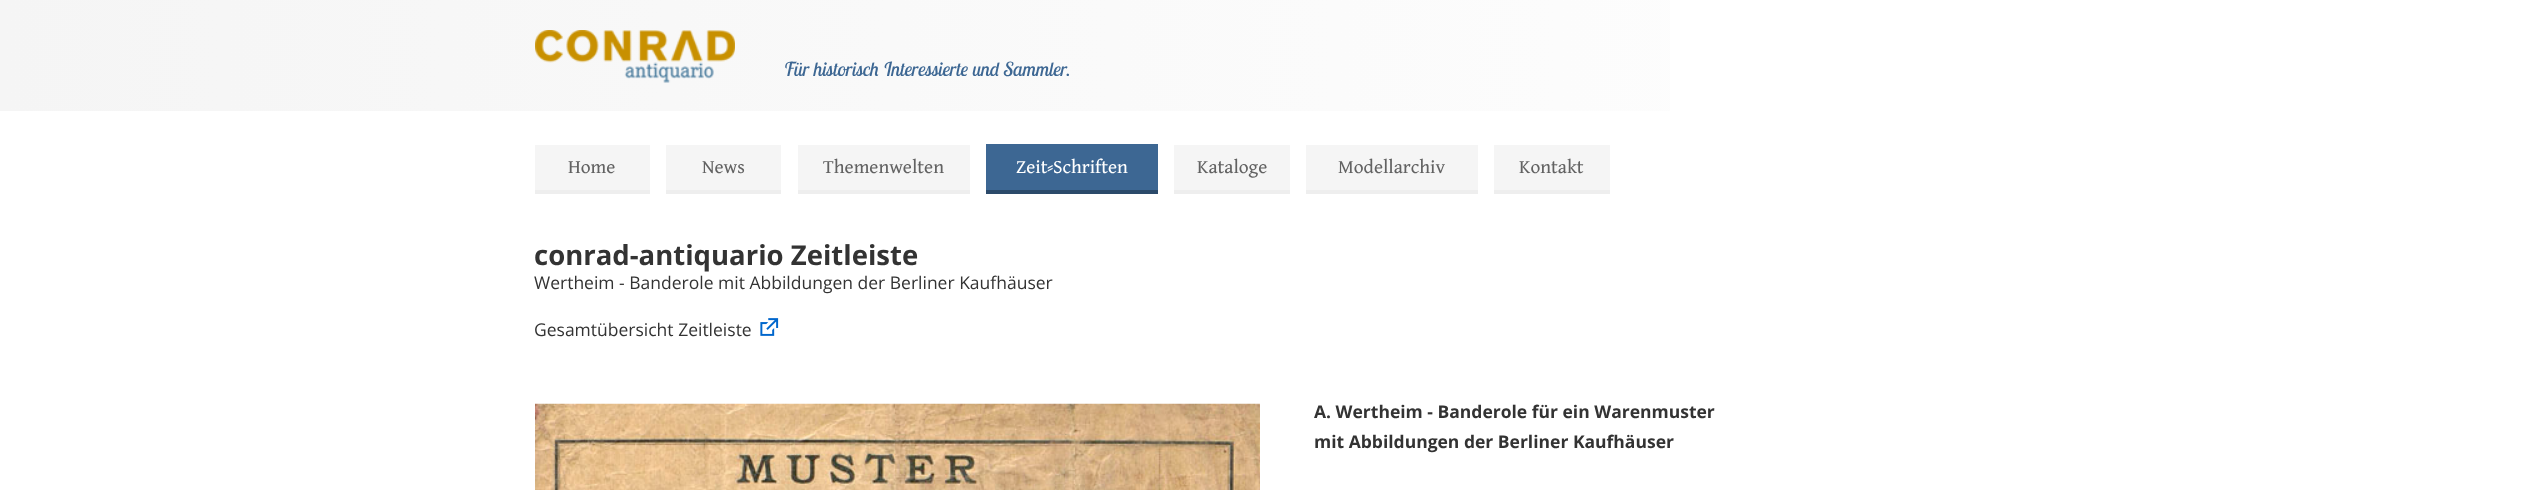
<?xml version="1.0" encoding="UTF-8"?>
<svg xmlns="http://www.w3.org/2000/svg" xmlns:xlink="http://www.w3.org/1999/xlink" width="2543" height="490">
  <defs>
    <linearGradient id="g1" gradientUnits="userSpaceOnUse" x1="0" y1="56" x2="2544" y2="56"><stop offset="0" stop-color="#f5f5f5" /><stop offset="0.7" stop-color="#fdfdfd" /><stop offset="1" stop-color="#ffffff" /></linearGradient>
  </defs>
  <rect width="100%" height="100%" fill="#ffffff" />
  <rect width="1670" height="111" fill="url(#g1)" />
  <image x="535" y="30" width="200" height="53" xlink:href="image1.png" />
  <rect x="535" y="145" width="115" height="45" fill="#f5f5f5" />
  <rect x="535" y="190" width="115" height="4" fill="#eeeeee" />
  <rect x="666" y="145" width="115" height="45" fill="#f5f5f5" />
  <rect x="666" y="190" width="115" height="4" fill="#eeeeee" />
  <rect x="798" y="145" width="172" height="45" fill="#f5f5f5" />
  <rect x="798" y="190" width="172" height="4" fill="#eeeeee" />
  <rect x="986" y="144" width="172" height="46" fill="#3d6793" />
  <rect x="986" y="190" width="172" height="4" fill="#2b4a6a" />
  <rect x="1174" y="145" width="116" height="45" fill="#f5f5f5" />
  <rect x="1174" y="190" width="116" height="4" fill="#eeeeee" />
  <rect x="1306" y="145" width="172" height="45" fill="#f5f5f5" />
  <rect x="1306" y="190" width="172" height="4" fill="#eeeeee" />
  <rect x="1494" y="145" width="116" height="45" fill="#f5f5f5" />
  <rect x="1494" y="190" width="116" height="4" fill="#eeeeee" />
  <image x="760" y="318" width="19" height="18" xlink:href="image2.png" />
  <image x="535" y="403" width="725" height="87" xlink:href="image3.png" />
  <text x="784" y="76" style="font-family: Lobster Two; font-size: 19.25px; font-style: italic; fill: #3d6793">Für historisch Interessierte und Sammler.</text>
  <text x="568" y="173" style="font-family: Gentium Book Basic; font-size: 19.25px; fill: #626262">Home</text>
  <text x="702" y="173" style="font-family: Gentium Book Basic; font-size: 19.25px; fill: #626262">News</text>
  <text x="823" y="173" style="font-family: Gentium Book Basic; font-size: 19.25px; fill: #626262">Themenwelten</text>
  <text x="1016" y="173" style="font-family: Gentium Book Basic; font-size: 19.25px; fill: #ffffff">Zeit</text>
  <text x="1047" y="173" style="font-family: Liberation Serif; font-size: 19.25px; fill: #ffffff">⸗</text>
  <text x="1053" y="173" style="font-family: Gentium Book Basic; font-size: 19.25px; fill: #ffffff">Schriften</text>
  <text x="1197" y="173" style="font-family: Gentium Book Basic; font-size: 19.25px; fill: #626262">Kataloge</text>
  <text x="1338" y="173" style="font-family: Gentium Book Basic; font-size: 19.25px; fill: #626262">Modellarchiv</text>
  <text x="1519" y="173" style="font-family: Gentium Book Basic; font-size: 19.25px; fill: #626262">Kontakt</text>
  <text x="534" y="265" style="font-family: Open Sans; font-size: 27.5px; font-weight: bold; fill: #333333">conrad-antiquario Zeitleiste</text>
  <text x="534" y="289" style="font-family: Open Sans; font-size: 17.5px; fill: #333333">Wertheim - Banderole mit Abbildungen der Berliner Kaufhäuser</text>
  <text x="534" y="336" style="font-family: Open Sans; font-size: 17.5px; fill: #333333">Gesamtübersicht Zeitleiste</text>
  <text x="1314" y="418" style="font-family: Open Sans; font-size: 17.5px; font-weight: bold; fill: #333333">A. Wertheim - Banderole für ein Warenmuster</text>
  <text x="1314" y="448" style="font-family: Open Sans; font-size: 17.5px; font-weight: bold; fill: #333333">mit Abbildungen der Berliner Kaufhäuser</text>
</svg>
